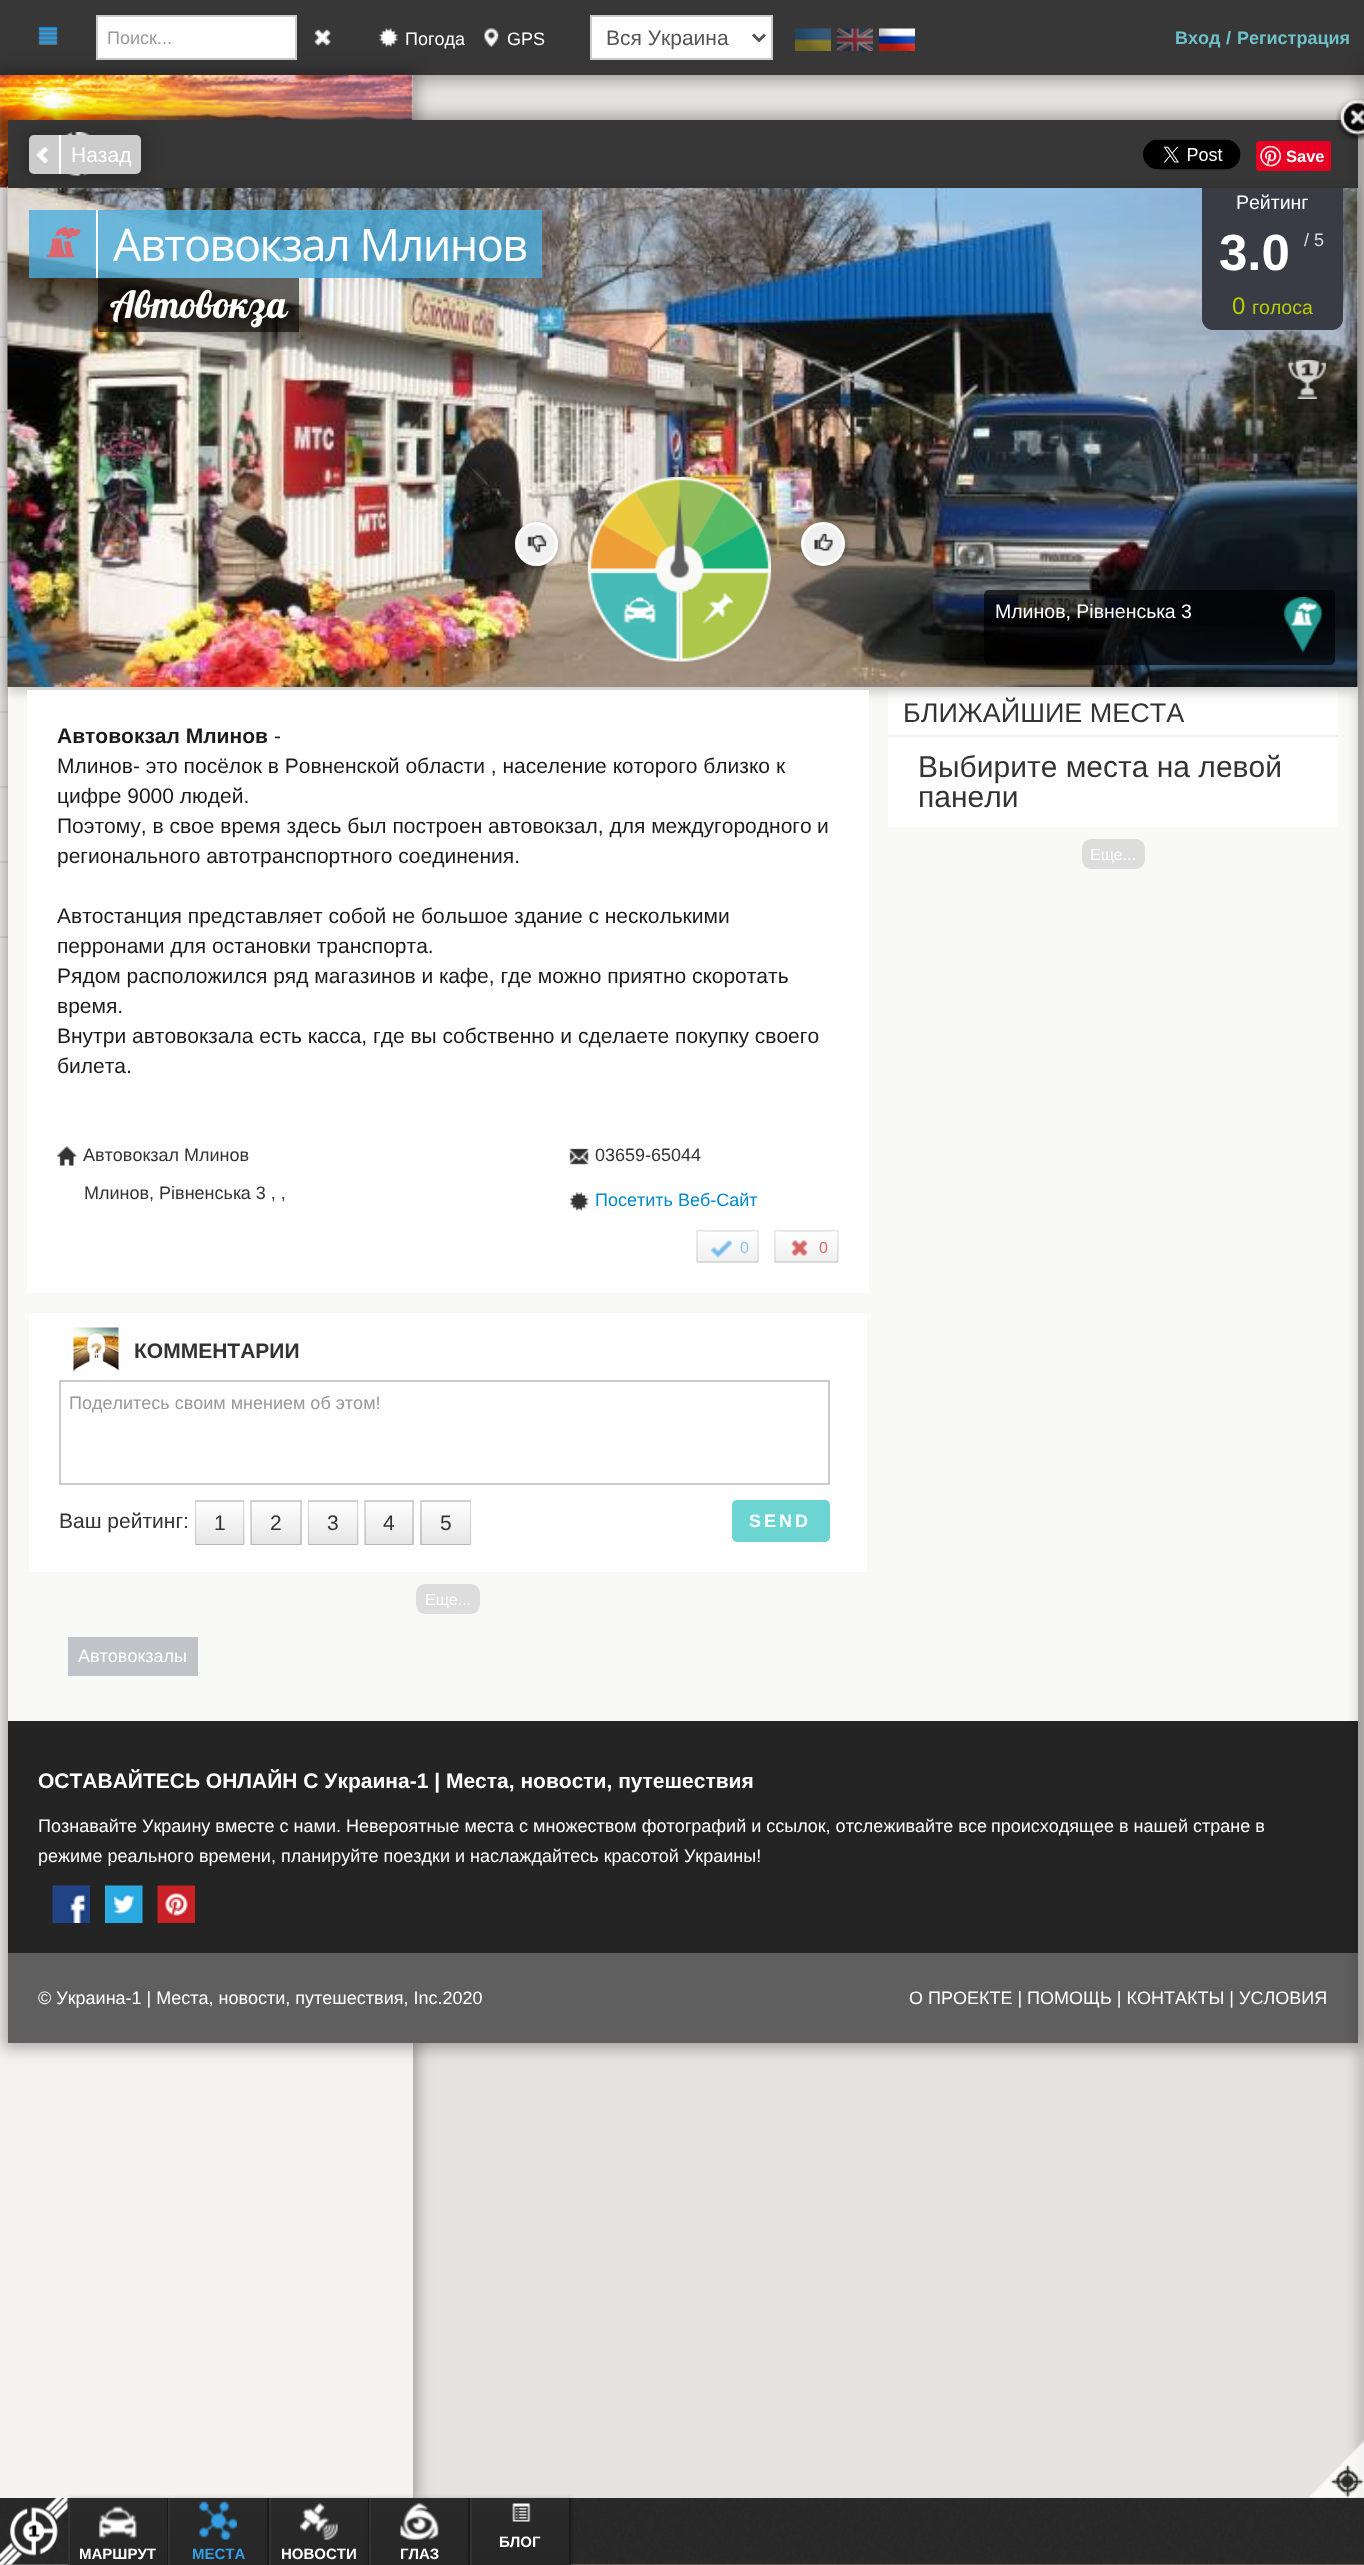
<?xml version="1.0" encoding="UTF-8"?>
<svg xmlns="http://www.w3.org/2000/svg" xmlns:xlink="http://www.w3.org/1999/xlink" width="1364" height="2565">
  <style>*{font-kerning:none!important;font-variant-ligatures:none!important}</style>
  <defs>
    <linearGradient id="g1" gradientUnits="userSpaceOnUse" x1="118" y1="2498" x2="118" y2="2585"><stop offset="0" stop-color="#2a2a2a" /><stop offset="1" stop-color="#262626" /></linearGradient>
    <linearGradient id="g2" gradientUnits="userSpaceOnUse" x1="218" y1="2498" x2="218" y2="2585"><stop offset="0" stop-color="#2a2a2a" /><stop offset="1" stop-color="#262626" /></linearGradient>
    <linearGradient id="g3" gradientUnits="userSpaceOnUse" x1="319" y1="2498" x2="319" y2="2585"><stop offset="0" stop-color="#2a2a2a" /><stop offset="1" stop-color="#262626" /></linearGradient>
    <linearGradient id="g4" gradientUnits="userSpaceOnUse" x1="419" y1="2498" x2="419" y2="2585"><stop offset="0" stop-color="#2a2a2a" /><stop offset="1" stop-color="#262626" /></linearGradient>
    <linearGradient id="g5" gradientUnits="userSpaceOnUse" x1="520" y1="2498" x2="520" y2="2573"><stop offset="0" stop-color="#2a2a2a" /><stop offset="1" stop-color="#262626" /></linearGradient>
    <linearGradient id="g6" gradientUnits="userSpaceOnUse" x1="728" y1="1232" x2="728" y2="1262"><stop offset="0" stop-color="#ffffff" /><stop offset="1" stop-color="#f0f0f0" /></linearGradient>
    <linearGradient id="g7" gradientUnits="userSpaceOnUse" x1="806" y1="1232" x2="806" y2="1262"><stop offset="0" stop-color="#ffffff" /><stop offset="1" stop-color="#f0f0f0" /></linearGradient>
    <linearGradient id="g8" gradientUnits="userSpaceOnUse" x1="220" y1="1502" x2="220" y2="1544"><stop offset="0" stop-color="#ffffff" /><stop offset="1" stop-color="#e6e6e6" /></linearGradient>
    <linearGradient id="g9" gradientUnits="userSpaceOnUse" x1="276" y1="1502" x2="276" y2="1544"><stop offset="0" stop-color="#ffffff" /><stop offset="1" stop-color="#e6e6e6" /></linearGradient>
    <linearGradient id="g10" gradientUnits="userSpaceOnUse" x1="333" y1="1502" x2="333" y2="1544"><stop offset="0" stop-color="#ffffff" /><stop offset="1" stop-color="#e6e6e6" /></linearGradient>
    <linearGradient id="g11" gradientUnits="userSpaceOnUse" x1="389" y1="1502" x2="389" y2="1544"><stop offset="0" stop-color="#ffffff" /><stop offset="1" stop-color="#e6e6e6" /></linearGradient>
    <linearGradient id="g12" gradientUnits="userSpaceOnUse" x1="446" y1="1502" x2="446" y2="1544"><stop offset="0" stop-color="#ffffff" /><stop offset="1" stop-color="#e6e6e6" /></linearGradient>
  </defs>
  <rect width="100%" height="100%" fill="#ffffff" />
  <rect x="413" y="75" width="951" height="2490" fill="#e5e3df" />
  <rect x="-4" y="-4" width="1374" height="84" fill="#000000" fill-opacity="0.3" filter="blur(7.5px)" />
  <rect width="1364" height="75" fill="#373737" />
  <image x="38" y="26" width="20" height="19" xlink:href="image1.png" />
  <rect x="97" y="16" width="199" height="43" fill="#ffffff" stroke="#cccccc" stroke-width="2" />
  <image x="314" y="29" width="17" height="17" xlink:href="image2.png" />
  <image x="379" y="28" width="19" height="19" xlink:href="image3.png" />
  <image x="484" y="28" width="15" height="20" xlink:href="image4.png" />
  <rect x="591" y="16" width="181" height="43" fill="#ffffff" stroke="#cccccc" stroke-width="2" />
  <path d="M 753 34.5 l 6 6 l 6 -6" fill="none" stroke="#555555" stroke-width="3" />
  <image x="795" y="28" width="36" height="23" xlink:href="image5.png" />
  <image x="837" y="28" width="36" height="23" xlink:href="image6.png" />
  <image x="879" y="28" width="36" height="23" xlink:href="image7.png" />
  <rect x="-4" y="71" width="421" height="2431" fill="#000000" fill-opacity="0.3" filter="blur(7.5px)" />
  <rect y="75" width="413" height="2423" fill="#f5f3f0" />
  <image x="0" y="75" width="413" height="113" xlink:href="image8.png" />
  <rect y="261" width="8" height="2" fill="#e1dfdc" />
  <rect y="336" width="8" height="2" fill="#e1dfdc" />
  <rect y="411" width="8" height="2" fill="#e1dfdc" />
  <rect y="486" width="8" height="2" fill="#e1dfdc" />
  <rect y="561" width="8" height="2" fill="#e1dfdc" />
  <rect y="636" width="8" height="2" fill="#e1dfdc" />
  <rect y="711" width="8" height="2" fill="#e1dfdc" />
  <rect y="786" width="8" height="2" fill="#e1dfdc" />
  <rect y="861" width="8" height="2" fill="#e1dfdc" />
  <rect y="936" width="8" height="2" fill="#e1dfdc" />
  <rect x="3" y="116" width="1359" height="1932" fill="#000000" fill-opacity="0.3" filter="blur(7.5px)" />
  <rect x="8" y="188" width="1350" height="1533" fill="#f9f9f6" />
  <rect x="8" y="120" width="1350" height="66" fill="#373737" />
  <image x="1336" y="98" width="28" height="43" xlink:href="image16.png" />
  <image x="65" y="132" width="26" height="44" xlink:href="image17.png" />
  <rect x="24" y="131" width="122" height="48" rx="9" fill="#000000" fill-opacity="0.2" filter="blur(7.5px)" />
  <rect x="29" y="135" width="112" height="39" rx="5" fill="#cccccc" />
  <rect x="59" y="135" width="2" height="39" fill="#ffffff" />
  <rect x="888" y="690" width="450" height="45" fill="#ffffff" />
  <rect x="8" y="191" width="1350" height="501" fill="#000000" fill-opacity="0.2" filter="blur(6px)" />
  <image x="7" y="186" width="1351" height="501" xlink:href="image21.png" />
  <rect x="8" y="186" width="1350" height="2" fill="#333333" />
  <path d="M 1202 188 h 141 v 131 c 0 6 -5 11 -11 11 h -119 c -6 0 -11 -5 -11 -11 z" fill="#393c45" />
  <rect x="1274" y="345" width="67" height="68" rx="6" fill="#000000" fill-opacity="0.14" />
  <rect x="888" y="735" width="450" height="2" fill="#eeeeee" />
  <rect x="888" y="737" width="450" height="90" fill="#ffffff" />
  <rect x="8" y="1721" width="1350" height="232" fill="#242424" />
  <rect x="8" y="1953" width="1350" height="90" fill="#5f5f5f" />
  <rect x="1361" y="66" width="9" height="2436" fill="#000000" fill-opacity="0.3" filter="blur(7.5px)" />
  <image x="0" y="2498" width="1364" height="67" xlink:href="image9.png" />
  <image x="0" y="2497" width="68" height="68" xlink:href="image10.png" />
  <rect x="69" y="2498" width="101" height="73" fill="#000000" fill-opacity="0.2" filter="blur(2px)" />
  <rect x="70" y="2498" width="97" height="67" fill="url(#g1)" />
  <rect x="167" y="2498" width="1" height="67" fill="#1b1b1b" />
  <rect x="170" y="2498" width="100" height="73" fill="#000000" fill-opacity="0.2" filter="blur(2px)" />
  <rect x="170" y="2498" width="97" height="67" fill="url(#g2)" />
  <rect x="267" y="2498" width="2" height="67" fill="#1b1b1b" />
  <rect x="270" y="2498" width="101" height="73" fill="#000000" fill-opacity="0.2" filter="blur(2px)" />
  <rect x="271" y="2498" width="97" height="67" fill="url(#g3)" />
  <rect x="368" y="2498" width="1" height="67" fill="#1b1b1b" />
  <rect x="371" y="2498" width="100" height="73" fill="#000000" fill-opacity="0.2" filter="blur(2px)" />
  <rect x="371" y="2498" width="97" height="67" fill="url(#g4)" />
  <rect x="468" y="2498" width="2" height="67" fill="#1b1b1b" />
  <rect x="471" y="2498" width="101" height="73" fill="#000000" fill-opacity="0.2" filter="blur(2px)" />
  <rect x="472" y="2498" width="97" height="67" fill="url(#g5)" />
  <rect x="569" y="2498" width="2" height="67" fill="#1b1b1b" />
  <rect x="470" y="2498" width="2" height="67" fill="#333333" />
  <image x="512" y="2503" width="19" height="20" xlink:href="image11.png" />
  <rect x="68" y="2498" width="2" height="67" fill="#333333" />
  <image x="99" y="2505" width="38" height="34" xlink:href="image12.png" />
  <rect x="168" y="2498" width="2" height="67" fill="#333333" />
  <image x="199" y="2501" width="38" height="39" xlink:href="image13.png" />
  <rect x="269" y="2498" width="2" height="67" fill="#333333" />
  <image x="300" y="2502" width="38" height="38" xlink:href="image14.png" />
  <rect x="369" y="2498" width="2" height="67" fill="#333333" />
  <image x="400" y="2503" width="39" height="37" xlink:href="image15.png" />
  <image x="36" y="146" width="13" height="19" xlink:href="image18.png" />
  <image x="1143" y="139" width="98" height="31" xlink:href="image19.png" />
  <rect x="1256" y="141" width="75" height="30" rx="3" fill="#e60023" />
  <image x="1260" y="146" width="21" height="21" xlink:href="image20.png" />
  <rect x="29" y="210" width="67" height="68" fill="#4caddc" fill-opacity="0.8" />
  <rect x="96" y="210" width="2" height="68" fill="#ffffff" />
  <image x="46" y="227" width="35" height="31" xlink:href="image22.png" />
  <rect x="98" y="210" width="444" height="68" fill="#4caddc" fill-opacity="0.8" />
  <rect x="98" y="278" width="201" height="54" fill="#000000" fill-opacity="0.58" />
  <image x="1288" y="360" width="38" height="39" xlink:href="image23.png" />
  <rect x="984" y="590" width="351" height="75" rx="5" fill="#000000" fill-opacity="0.68" />
  <image x="1283" y="597" width="40" height="56" xlink:href="image24.png" />
  <rect x="515" y="522" width="46" height="47" rx="23" fill="#000000" fill-opacity="0.2" filter="blur(2px)" />
  <rect x="516.5" y="523.5" width="40" height="41" rx="20" fill="#f0f0f0" stroke="#ffffff" stroke-width="3" />
  <image x="527" y="535" width="20" height="18" xlink:href="image25.png" />
  <image x="588" y="477" width="183" height="116" xlink:href="image26.png" />
  <image x="670" y="496" width="19" height="82" xlink:href="image27.png" />
  <image x="679" y="601" width="1" height="9" xlink:href="image28.png" />
  <rect x="801" y="522" width="47" height="47" rx="23.5" fill="#000000" fill-opacity="0.2" filter="blur(2px)" />
  <circle cx="823" cy="544" r="20.5" fill="#f0f0f0" stroke="#ffffff" stroke-width="3" />
  <image x="814" y="533" width="19" height="18" xlink:href="image29.png" />
  <image x="587" y="570" width="93" height="92" xlink:href="image30.png" />
  <image x="679" y="570" width="93" height="92" xlink:href="image31.png" />
  <rect x="27" y="690" width="842" height="603" fill="#ffffff" />
  <image x="57" y="1146" width="20" height="20" xlink:href="image32.png" />
  <image x="569" y="1148" width="20" height="17" xlink:href="image33.png" />
  <image x="569" y="1192" width="20" height="19" xlink:href="image34.png" />
  <rect x="696" y="1230" width="63" height="33" rx="1.5" fill="#f9f9f9" />
  <rect x="696" y="1232" width="63" height="30" fill="url(#g6)" />
  <rect x="697" y="1261" width="61" height="2" fill="#666666" fill-opacity="0.19" />
  <path d="M 697 1262 v -25.5 c 0 -9 -1 -5.5 10.5 -5.5 h 40 c 11.5 0 10.5 -3.5 10.5 5.5 v 25.5" fill="none" stroke="#666666" stroke-opacity="0.15" stroke-width="1.5" />
  <image x="711" y="1240" width="21" height="18" xlink:href="image35.png" />
  <rect x="774" y="1230" width="65" height="33" rx="1.5" fill="#f9f9f9" />
  <rect x="774" y="1232" width="65" height="30" fill="url(#g7)" />
  <rect x="775" y="1261" width="63" height="2" fill="#666666" fill-opacity="0.19" />
  <path d="M 775 1262 v -25.5 c 0 -9 -1 -5.5 11 -5.5 h 41 c 11.5 0 11 -3.5 11 5.5 l -0.5 25.5" fill="none" stroke="#666666" stroke-opacity="0.15" stroke-width="1.5" />
  <image x="791" y="1240" width="17" height="16" xlink:href="image36.png" />
  <rect x="1082" y="839" width="63" height="30" rx="9" fill="#dddddd" />
  <rect x="29" y="1313" width="838" height="259" fill="#ffffff" />
  <image x="73" y="1327" width="46" height="45" xlink:href="image37.png" />
  <rect x="60" y="1381" width="769" height="103" fill="none" stroke="#cccccc" stroke-width="2" />
  <rect x="195" y="1500" width="50" height="45" fill="#f5f5f5" />
  <rect x="195" y="1502" width="50" height="42" fill="url(#g8)" />
  <path d="M 195 1500 h 49 l -1 2 h -47 z" fill="#d0d0d0" />
  <path d="M 244 1500 v 45 l -1 -1 v -42 z" fill="#000000" fill-opacity="0.15" />
  <path d="M 244 1545 h -49 l 1 -1 h 47 z" fill="#000000" fill-opacity="0.25" />
  <path d="M 195 1545 v -45 l 1 2 v 42 z" fill="#000000" fill-opacity="0.15" />
  <rect x="251" y="1500" width="51" height="45" fill="#f5f5f5" />
  <rect x="251" y="1502" width="51" height="42" fill="url(#g9)" />
  <path d="M 250 1500 h 52 l -2 2 h -48 z" fill="#d0d0d0" />
  <path d="M 302 1500 v 45 l -2 -1 v -42 z" fill="#000000" fill-opacity="0.15" />
  <path d="M 302 1545 h -52 l 2 -1 h 48 z" fill="#000000" fill-opacity="0.25" />
  <path d="M 250 1545 v -45 l 2 2 v 42 z" fill="#000000" fill-opacity="0.15" />
  <rect x="308" y="1500" width="51" height="45" fill="#f5f5f5" />
  <rect x="308" y="1502" width="51" height="42" fill="url(#g10)" />
  <path d="M 308 1500 h 50 l -1 2 h -48 z" fill="#d0d0d0" />
  <path d="M 358 1500 v 45 l -1 -1 v -42 z" fill="#000000" fill-opacity="0.15" />
  <path d="M 358 1545 h -50 l 1 -1 h 48 z" fill="#000000" fill-opacity="0.25" />
  <path d="M 308 1545 v -45 l 1 2 v 42 z" fill="#000000" fill-opacity="0.15" />
  <rect x="365" y="1500" width="49" height="45" fill="#f5f5f5" />
  <rect x="365" y="1502" width="49" height="42" fill="url(#g11)" />
  <path d="M 364 1500 h 50 l -2 2 h -46 z" fill="#d0d0d0" />
  <path d="M 414 1500 v 45 l -2 -1 v -42 z" fill="#000000" fill-opacity="0.15" />
  <path d="M 414 1545 h -50 l 2 -1 h 46 z" fill="#000000" fill-opacity="0.25" />
  <path d="M 364 1545 v -45 l 2 2 v 42 z" fill="#000000" fill-opacity="0.15" />
  <rect x="420" y="1500" width="51" height="45" fill="#f5f5f5" />
  <rect x="420" y="1502" width="51" height="42" fill="url(#g12)" />
  <path d="M 420 1500 h 51 l -1 2 h -48 z" fill="#d0d0d0" />
  <path d="M 471 1500 v 45 l -1 -1 v -42 z" fill="#000000" fill-opacity="0.15" />
  <path d="M 471 1545 h -51 l 2 -1 h 48 z" fill="#000000" fill-opacity="0.25" />
  <path d="M 420 1545 v -45 l 2 2 v 42 z" fill="#000000" fill-opacity="0.15" />
  <rect x="732" y="1500" width="98" height="42" rx="5" fill="#6cd5d1" />
  <rect x="416" y="1584" width="64" height="30" rx="9" fill="#dddddd" />
  <rect x="68" y="1637" width="130" height="39" fill="#c2c2c9" />
  <image x="52" y="1885" width="38" height="38" xlink:href="image38.png" />
  <image x="105" y="1885" width="38" height="38" xlink:href="image39.png" />
  <image x="157" y="1885" width="38" height="38" xlink:href="image40.png" />
  <image x="1309" y="2440" width="55" height="58" xlink:href="image41.png" />
  <text x="107" y="44" style="font-family: Liberation Sans; font-size: 18px; fill: #999999">Поиск...</text>
  <text x="405" y="45" style="font-family: Liberation Sans; font-size: 18px; fill: #ffffff">Погода</text>
  <text x="507" y="45" style="font-family: Liberation Sans; font-size: 18px; fill: #ffffff">GPS</text>
  <text x="606" y="45" style="font-family: Liberation Sans; font-size: 21px; fill: #555555">Вся Украина</text>
  <text x="1175" y="44" style="font-family: Liberation Sans; font-size: 18px; font-weight: bold; fill: #6fc1c9">Вход</text>
  <text x="1226" y="44" style="font-family: Liberation Sans; font-size: 18px; font-weight: bold; fill: #6fc1c9">/</text>
  <text x="1237" y="44" style="font-family: Liberation Sans; font-size: 18px; font-weight: bold; fill: #6fc1c9">Регистрация</text>
  <text x="499" y="2547" style="font-family: Liberation Sans; font-size: 15px; font-weight: bold; fill: #ffffff">БЛОГ</text>
  <text x="79" y="2559" style="font-family: Liberation Sans; font-size: 15px; font-weight: bold; fill: #ffffff">МАРШРУТ</text>
  <text x="192" y="2559" style="font-family: Liberation Sans; font-size: 15px; font-weight: bold; fill: #359fe6">МЕСТА</text>
  <text x="281" y="2559" style="font-family: Liberation Sans; font-size: 15px; font-weight: bold; fill: #ffffff">НОВОСТИ</text>
  <text x="400" y="2559" style="font-family: Liberation Sans; font-size: 15px; font-weight: bold; fill: #ffffff">ГЛАЗ</text>
  <text x="71" y="162" style="font-family: Liberation Sans; font-size: 21px; fill: #ffffff">Назад</text>
  <text x="1286" y="162" style="font-family: Liberation Sans; font-size: 16.5px; font-weight: bold; fill: #ffffff">Save</text>
  <text x="113" y="261" style="font-family: Open Sans; font-size: 45px; letter-spacing: -1.5px; fill: #ffffff">Автовокзал Млинов</text>
  <text x="110" y="318" style="font-family: Lobster; font-size: 37.5px; fill: #ffffff">Автовокза</text>
  <text x="1236" y="209" style="font-family: Liberation Sans; font-size: 19.5px; fill: #ffffff">Рейтинг</text>
  <text x="1219" y="270" style="font-family: Liberation Sans; font-size: 51px; font-weight: bold; fill: #ffffff">3.0</text>
  <text x="1304" y="246" style="font-family: Liberation Sans; font-size: 18px; fill: #dddddd">/ 5</text>
  <text x="1232" y="314" style="font-family: Liberation Sans; font-size: 24px; fill: #b7cc00">0</text>
  <text x="1252" y="314" style="font-family: Liberation Sans; font-size: 19.5px; fill: #b7cc00">голоса</text>
  <text x="995" y="618" style="font-family: Liberation Sans; font-size: 19.5px; fill: #ffffff">Млинов, Рівненська 3</text>
  <text x="57" y="743" style="font-family: Liberation Sans; font-size: 21px; font-weight: bold; fill: #1b1b1b">Автовокзал Млинов</text>
  <text x="274" y="743" style="font-family: Liberation Sans; font-size: 21px; fill: #1b1b1b">-</text>
  <text x="57" y="773" style="font-family: Liberation Sans; font-size: 21px; fill: #1b1b1b">Млинов- это посёлок в Ровненской области , население которого близко</text>
  <text x="776" y="773" style="font-family: Liberation Sans; font-size: 21px; fill: #1b1b1b">к</text>
  <text x="57" y="803" style="font-family: Liberation Sans; font-size: 21px; fill: #1b1b1b">цифре 9000 людей.</text>
  <text x="57" y="833" style="font-family: Liberation Sans; font-size: 21px; fill: #1b1b1b">Поэтому, в свое время здесь был построен автовокзал, для междугородного</text>
  <text x="817" y="833" style="font-family: Liberation Sans; font-size: 21px; fill: #1b1b1b">и</text>
  <text x="57" y="863" style="font-family: Liberation Sans; font-size: 21px; fill: #1b1b1b">регионального автотранспортного соединения.</text>
  <text x="57" y="923" style="font-family: Liberation Sans; font-size: 21px; fill: #1b1b1b">Автостанция представляет собой не большое здание с несколькими</text>
  <text x="57" y="953" style="font-family: Liberation Sans; font-size: 21px; fill: #1b1b1b">перронами для остановки транспорта.</text>
  <text x="57" y="983" style="font-family: Liberation Sans; font-size: 21px; fill: #1b1b1b">Рядом расположился ряд магазинов и кафе, где можно приятно скоротать</text>
  <text x="57" y="1013" style="font-family: Liberation Sans; font-size: 21px; fill: #1b1b1b">время.</text>
  <text x="57" y="1043" style="font-family: Liberation Sans; font-size: 21px; fill: #1b1b1b">Внутри автовокзала есть касса, где вы собственно и сделаете покупку своего</text>
  <text x="57" y="1073" style="font-family: Liberation Sans; font-size: 21px; fill: #1b1b1b">билета.</text>
  <text x="83" y="1161" style="font-family: Liberation Sans; font-size: 18px; fill: #333333">Автовокзал Млинов</text>
  <text x="84" y="1199" style="font-family: Liberation Sans; font-size: 18px; fill: #333333">Млинов, Рівненська 3 , ,</text>
  <text x="595" y="1161" style="font-family: Liberation Sans; font-size: 18px; fill: #333333">03659-65044</text>
  <text x="595" y="1206" style="font-family: Liberation Sans; font-size: 18px; fill: #0088cc">Посетить Веб-Сайт</text>
  <text x="740" y="1253" style="font-family: Liberation Sans; font-size: 16px; fill: #86c5f0">0</text>
  <text x="819" y="1253" style="font-family: Liberation Sans; font-size: 16px; fill: #da6666">0</text>
  <text x="903" y="722" style="font-family: Liberation Sans; font-size: 27px; fill: #333333">БЛИЖАЙШИЕ МЕСТА</text>
  <text x="918" y="777" style="font-family: Liberation Sans; font-size: 30px; fill: #333333">Выбирите места на левой</text>
  <text x="918" y="807" style="font-family: Liberation Sans; font-size: 30px; fill: #333333">панели</text>
  <text x="1090" y="860" style="font-family: Liberation Sans; font-size: 16px; fill: #ffffff">Еще...</text>
  <text x="134" y="1358" style="font-family: Liberation Sans; font-size: 21px; font-weight: bold; fill: #333333">КОММЕНТАРИИ</text>
  <text x="69" y="1409" style="font-family: Liberation Sans; font-size: 18px; fill: #999999">Поделитесь своим мнением об этом!</text>
  <text x="59" y="1528" style="font-family: Liberation Sans; font-size: 21px; fill: #333333">Ваш рейтинг:</text>
  <text x="214" y="1530" style="font-family: Liberation Sans; font-size: 21px; fill: #333333">1</text>
  <text x="270" y="1530" style="font-family: Liberation Sans; font-size: 21px; fill: #333333">2</text>
  <text x="327" y="1530" style="font-family: Liberation Sans; font-size: 21px; fill: #333333">3</text>
  <text x="383" y="1530" style="font-family: Liberation Sans; font-size: 21px; fill: #333333">4</text>
  <text x="440" y="1530" style="font-family: Liberation Sans; font-size: 21px; fill: #333333">5</text>
  <text x="749" y="1527" style="font-family: Liberation Sans; font-size: 18px; font-weight: bold; letter-spacing: 3px; fill: #ffffff">SEND</text>
  <text x="425" y="1605" style="font-family: Liberation Sans; font-size: 16px; fill: #ffffff">Еще...</text>
  <text x="78" y="1662" style="font-family: Liberation Sans; font-size: 18px; fill: #ffffff">Автовокзалы</text>
  <text x="38" y="1788" style="font-family: Liberation Sans; font-size: 21px; font-weight: bold; fill: #ffffff">ОСТАВАЙТЕСЬ ОНЛАЙН С Украина-1 | Места, новости, путешествия</text>
  <text x="38" y="1832" style="font-family: Liberation Sans; font-size: 18px; fill: #ffffff">Познавайте Украину вместе с нами. Невероятные места с множеством фотографий и ссылок, отслеживайте все</text>
  <text x="991" y="1832" style="font-family: Liberation Sans; font-size: 18px; fill: #ffffff">происходящее в нашей стране в</text>
  <text x="38" y="1862" style="font-family: Liberation Sans; font-size: 18px; fill: #ffffff">режиме реального времени, планируйте поездки и наслаждайтесь красотой Украины!</text>
  <text x="38" y="2004" style="font-family: Liberation Sans; font-size: 18px; fill: #ffffff">© Украина-1 | Места, новости, путешествия, Inc.2020</text>
  <text x="909" y="2004" style="font-family: Liberation Sans; font-size: 18px; fill: #ffffff">О ПРОЕКТЕ | ПОМОЩЬ | КОНТАКТЫ | УСЛОВИЯ</text>
</svg>
